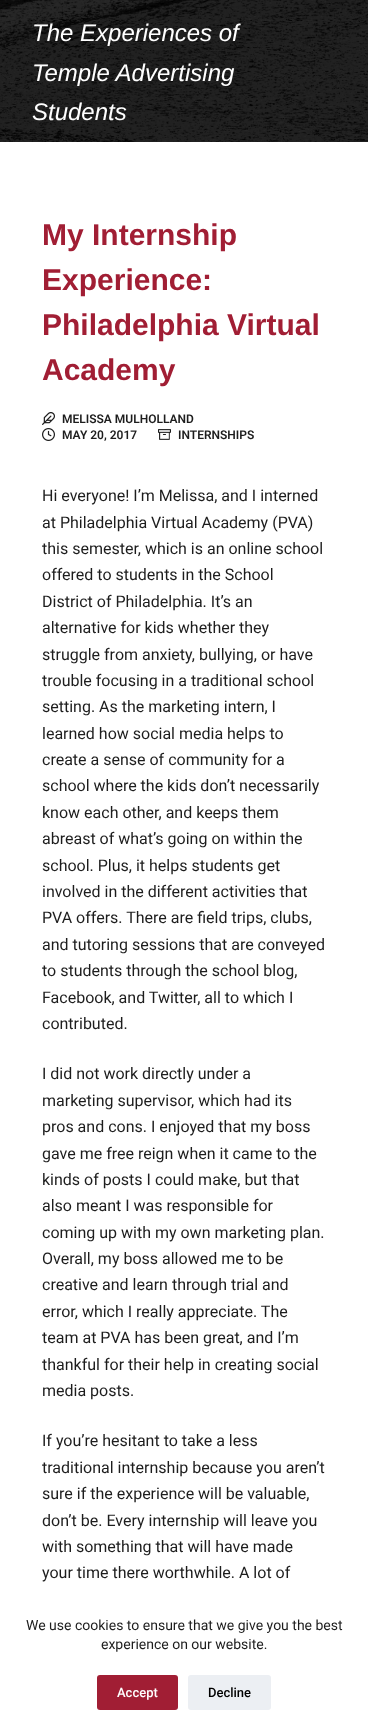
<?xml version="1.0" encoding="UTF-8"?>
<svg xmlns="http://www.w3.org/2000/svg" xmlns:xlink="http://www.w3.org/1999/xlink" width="368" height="1730">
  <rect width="100%" height="100%" fill="#ffffff" />
  <image x="0" y="0" width="368" height="142" xlink:href="image1.png" />
  <rect x="328" width="18" height="2" rx="1" fill="#1d1d1d" />
  <rect x="328" y="6" width="18" height="2" rx="1" fill="#1d1d1d" />
  <image x="42" y="412" width="13" height="13" xlink:href="image2.png" />
  <image x="42" y="428" width="13" height="13" xlink:href="image3.png" />
  <image x="158" y="429" width="13" height="11" xlink:href="image4.png" />
  <rect x="97" y="1675" width="81" height="35" rx="3" fill="#a11e34" />
  <rect x="188" y="1675" width="83" height="35" rx="3" fill="#eceff3" />
  <text x="32" y="41" style="font-family: Liberation Sans; font-size: 24px; font-style: italic; fill: #ffffff">The Experiences of</text>
  <text x="32" y="81" style="font-family: Liberation Sans; font-size: 24px; font-style: italic; fill: #ffffff">Temple Advertising</text>
  <text x="32" y="120" style="font-family: Liberation Sans; font-size: 24px; font-style: italic; fill: #ffffff">Students</text>
  <text x="42" y="245" style="font-family: Liberation Sans; font-size: 30px; font-weight: bold; fill: #a11e34">My Internship</text>
  <text x="42" y="290" style="font-family: Liberation Sans; font-size: 30px; font-weight: bold; fill: #a11e34">Experience:</text>
  <text x="42" y="335" style="font-family: Liberation Sans; font-size: 30px; font-weight: bold; fill: #a11e34">Philadelphia Virtual</text>
  <text x="42" y="380" style="font-family: Liberation Sans; font-size: 30px; font-weight: bold; fill: #a11e34">Academy</text>
  <text x="62" y="423" style="font-family: Roboto; font-size: 12px; font-weight: 600; fill: #1d1d1d">MELISSA MULHOLLAND</text>
  <text x="62" y="439" style="font-family: Roboto; font-size: 12px; font-weight: 600; fill: #1d1d1d">MAY 20, 2017</text>
  <text x="178" y="439" style="font-family: Roboto; font-size: 12px; font-weight: 600; fill: #1d1d1d">INTERNSHIPS</text>
  <text x="42" y="501" style="font-family: Roboto; font-size: 16px; fill: #1d1d1d">Hi everyone! I’m Melissa, and I interned</text>
  <text x="42" y="528" style="font-family: Roboto; font-size: 16px; fill: #1d1d1d">at Philadelphia Virtual Academy (PVA)</text>
  <text x="42" y="554" style="font-family: Roboto; font-size: 16px; fill: #1d1d1d">this semester, which is an online school</text>
  <text x="42" y="580" style="font-family: Roboto; font-size: 16px; fill: #1d1d1d">offered to students in the School</text>
  <text x="42" y="607" style="font-family: Roboto; font-size: 16px; fill: #1d1d1d">District of Philadelphia. It’s an</text>
  <text x="42" y="633" style="font-family: Roboto; font-size: 16px; fill: #1d1d1d">alternative for kids whether they</text>
  <text x="42" y="660" style="font-family: Roboto; font-size: 16px; fill: #1d1d1d">struggle from anxiety, bullying, or have</text>
  <text x="42" y="686" style="font-family: Roboto; font-size: 16px; fill: #1d1d1d">trouble focusing in a traditional school</text>
  <text x="42" y="712" style="font-family: Roboto; font-size: 16px; fill: #1d1d1d">setting. As the marketing intern, I</text>
  <text x="42" y="739" style="font-family: Roboto; font-size: 16px; fill: #1d1d1d">learned how social media helps to</text>
  <text x="42" y="765" style="font-family: Roboto; font-size: 16px; fill: #1d1d1d">create a sense of community for a</text>
  <text x="42" y="791" style="font-family: Roboto; font-size: 16px; fill: #1d1d1d">school where the kids don’t necessarily</text>
  <text x="42" y="818" style="font-family: Roboto; font-size: 16px; fill: #1d1d1d">know each other, and keeps them</text>
  <text x="42" y="844" style="font-family: Roboto; font-size: 16px; fill: #1d1d1d">abreast of what’s going on within the</text>
  <text x="42" y="871" style="font-family: Roboto; font-size: 16px; fill: #1d1d1d">school. Plus, it helps students get</text>
  <text x="42" y="897" style="font-family: Roboto; font-size: 16px; fill: #1d1d1d">involved in the different activities that</text>
  <text x="42" y="923" style="font-family: Roboto; font-size: 16px; fill: #1d1d1d">PVA offers. There are field trips, clubs,</text>
  <text x="42" y="950" style="font-family: Roboto; font-size: 16px; fill: #1d1d1d">and tutoring sessions that are conveyed</text>
  <text x="42" y="976" style="font-family: Roboto; font-size: 16px; fill: #1d1d1d">to students through the school blog,</text>
  <text x="42" y="1003" style="font-family: Roboto; font-size: 16px; fill: #1d1d1d">Facebook, and Twitter, all to which I</text>
  <text x="42" y="1029" style="font-family: Roboto; font-size: 16px; fill: #1d1d1d">contributed.</text>
  <text x="42" y="1079" style="font-family: Roboto; font-size: 16px; fill: #1d1d1d">I did not work directly under a</text>
  <text x="42" y="1106" style="font-family: Roboto; font-size: 16px; fill: #1d1d1d">marketing supervisor, which had its</text>
  <text x="42" y="1132" style="font-family: Roboto; font-size: 16px; fill: #1d1d1d">pros and cons. I enjoyed that my boss</text>
  <text x="42" y="1159" style="font-family: Roboto; font-size: 16px; fill: #1d1d1d">gave me free reign when it came to the</text>
  <text x="42" y="1185" style="font-family: Roboto; font-size: 16px; fill: #1d1d1d">kinds of posts I could make, but that</text>
  <text x="42" y="1211" style="font-family: Roboto; font-size: 16px; fill: #1d1d1d">also meant I was responsible for</text>
  <text x="42" y="1238" style="font-family: Roboto; font-size: 16px; fill: #1d1d1d">coming up with my own marketing plan.</text>
  <text x="42" y="1264" style="font-family: Roboto; font-size: 16px; fill: #1d1d1d">Overall, my boss allowed me to be</text>
  <text x="42" y="1290" style="font-family: Roboto; font-size: 16px; fill: #1d1d1d">creative and learn through trial and</text>
  <text x="42" y="1317" style="font-family: Roboto; font-size: 16px; fill: #1d1d1d">error, which I really appreciate. The</text>
  <text x="42" y="1343" style="font-family: Roboto; font-size: 16px; fill: #1d1d1d">team at PVA has been great, and I’m</text>
  <text x="42" y="1370" style="font-family: Roboto; font-size: 16px; fill: #1d1d1d">thankful for their help in creating social</text>
  <text x="42" y="1396" style="font-family: Roboto; font-size: 16px; fill: #1d1d1d">media posts.</text>
  <text x="42" y="1446" style="font-family: Roboto; font-size: 16px; fill: #1d1d1d">If you’re hesitant to take a less</text>
  <text x="42" y="1473" style="font-family: Roboto; font-size: 16px; fill: #1d1d1d">traditional internship because you aren’t</text>
  <text x="42" y="1499" style="font-family: Roboto; font-size: 16px; fill: #1d1d1d">sure if the experience will be valuable,</text>
  <text x="42" y="1526" style="font-family: Roboto; font-size: 16px; fill: #1d1d1d">don’t be. Every internship will leave you</text>
  <text x="42" y="1552" style="font-family: Roboto; font-size: 16px; fill: #1d1d1d">with something that will have made</text>
  <text x="42" y="1578" style="font-family: Roboto; font-size: 16px; fill: #1d1d1d">your time there worthwhile. A lot of</text>
  <text x="26" y="1630" style="font-family: Roboto; font-size: 14px; fill: #1d1d1d">We use cookies to ensure that we give you the best</text>
  <text x="101" y="1649" style="font-family: Roboto; font-size: 14px; fill: #1d1d1d">experience on our website.</text>
  <text x="117" y="1697" style="font-family: Roboto; font-size: 13px; font-weight: 500; fill: #ffffff">Accept</text>
  <text x="208" y="1697" style="font-family: Roboto; font-size: 13px; font-weight: 500; fill: #000000">Decline</text>
</svg>
